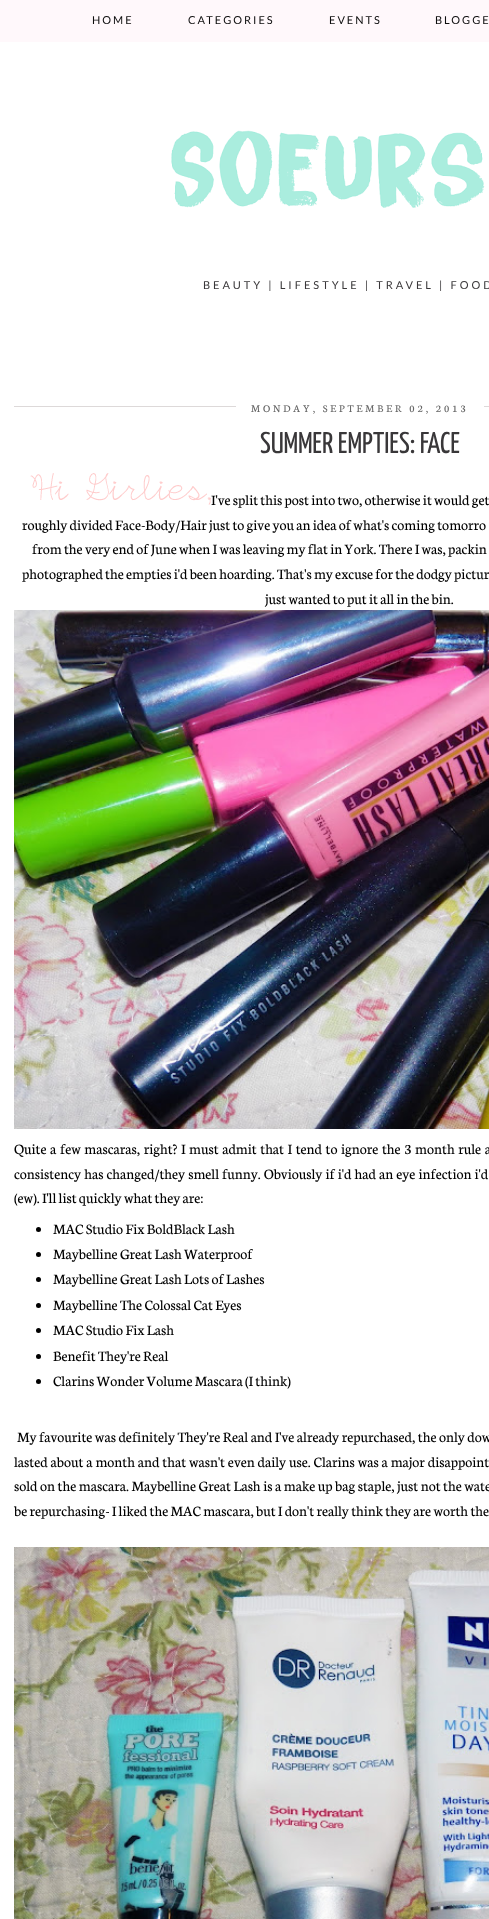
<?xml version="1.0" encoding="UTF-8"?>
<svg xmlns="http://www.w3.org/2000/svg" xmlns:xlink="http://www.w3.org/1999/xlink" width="489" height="1919">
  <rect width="100%" height="100%" fill="#ffffff" />
  <rect width="489" height="42" fill="#fff8fb" />
  <image x="171" y="130" width="314" height="78" xlink:href="image1.png" />
  <rect x="14" y="406" width="475" height="1" fill="#ddd9d9" />
  <rect x="236" y="406" width="248" height="1" fill="#ffffff" />
  <image x="30" y="473" width="181" height="32" xlink:href="image2.png" />
  <image x="14" y="610" width="475" height="519" xlink:href="image3.png" />
  <circle cx="38.5" cy="1229.5" r="2.5" fill="#000000" />
  <circle cx="38.5" cy="1254.5" r="2.5" fill="#000000" />
  <circle cx="38.5" cy="1279.5" r="2.5" fill="#000000" />
  <circle cx="38.5" cy="1305.5" r="2.5" fill="#000000" />
  <circle cx="38.5" cy="1330.5" r="2.5" fill="#000000" />
  <circle cx="38.5" cy="1356.5" r="2.5" fill="#000000" />
  <circle cx="38.5" cy="1381.5" r="2.5" fill="#000000" />
  <image x="14" y="1547" width="475" height="372" xlink:href="image4.png" />
  <text x="92" y="24" style="font-family: Lato; font-size: 11px; letter-spacing: 2px; fill: #0d0d0d">HOME</text>
  <text x="188" y="24" style="font-family: Lato; font-size: 11px; letter-spacing: 2px; fill: #0d0d0d">CATEGORIES</text>
  <text x="329" y="24" style="font-family: Lato; font-size: 11px; letter-spacing: 2px; fill: #0d0d0d">EVENTS</text>
  <text x="435" y="24" style="font-family: Lato; font-size: 11px; letter-spacing: 2px; fill: #0d0d0d">BLOGGE</text>
  <text x="203" y="289" style="font-family: Lato; font-size: 11px; letter-spacing: 3px; fill: #393739">BEAUTY | LIFESTYLE | TRAVEL | FOOD</text>
  <text x="251" y="412" style="font-family: Neuton; font-size: 11px; letter-spacing: 3px; fill: #666666">MONDAY, SEPTEMBER 02, 2013</text>
  <text x="260" y="453" style="font-family: Yanone Kaffeesatz; font-size: 30px; font-weight: 200; fill: #393739">SUMMER EMPTIES: FACE</text>
  <text x="211" y="505" style="font-family: Neuton; font-size: 15.4px; fill: #000000">I've split this post into two, otherwise it would get</text>
  <text x="22" y="530" style="font-family: Neuton; font-size: 15.4px; fill: #000000">roughly divided Face-Body/Hair just to give you an idea of what's coming tomorro</text>
  <text x="32" y="554" style="font-family: Neuton; font-size: 15.4px; fill: #000000">from the very end of June when I was leaving my flat in York. There I was, packin</text>
  <text x="22" y="579" style="font-family: Neuton; font-size: 15.4px; fill: #000000">photographed the empties i'd been hoarding. That's my excuse for the dodgy pictur</text>
  <text x="265" y="604" style="font-family: Neuton; font-size: 15.4px; fill: #000000">just wanted to put it all in the bin.</text>
  <text x="14" y="1154" word-spacing="1.3" style="font-family: Neuton; font-size: 15.4px; fill: #000000">Quite a few mascaras, right? I must admit that I tend to ignore the 3 month rule a</text>
  <text x="14" y="1179" word-spacing="0.8" style="font-family: Neuton; font-size: 15.4px; fill: #000000">consistency has changed/they smell funny. Obviously if i'd had an eye infection i'd</text>
  <text x="14" y="1203" style="font-family: Neuton; font-size: 15.4px; fill: #000000">(ew). I'll list quickly what they are:</text>
  <text x="53" y="1234" style="font-family: Neuton; font-size: 15.4px; fill: #000000">MAC Studio Fix BoldBlack Lash</text>
  <text x="53" y="1259" style="font-family: Neuton; font-size: 15.4px; fill: #000000">Maybelline Great Lash Waterproof</text>
  <text x="53" y="1284" style="font-family: Neuton; font-size: 15.4px; fill: #000000">Maybelline Great Lash Lots of Lashes</text>
  <text x="53" y="1310" style="font-family: Neuton; font-size: 15.4px; fill: #000000">Maybelline The Colossal Cat Eyes</text>
  <text x="53" y="1335" style="font-family: Neuton; font-size: 15.4px; fill: #000000">MAC Studio Fix Lash</text>
  <text x="53" y="1361" style="font-family: Neuton; font-size: 15.4px; fill: #000000">Benefit They're Real</text>
  <text x="53" y="1386" style="font-family: Neuton; font-size: 15.4px; fill: #000000">Clarins Wonder Volume Mascara (I think)</text>
  <text x="17" y="1442" word-spacing="0.25" style="font-family: Neuton; font-size: 15.4px; fill: #000000">My favourite was definitely They're Real and I've already repurchased, the only dow</text>
  <text x="14" y="1467" word-spacing="0.6" style="font-family: Neuton; font-size: 15.4px; fill: #000000">lasted about a month and that wasn't even daily use. Clarins was a major disappoint</text>
  <text x="14" y="1491" word-spacing="0.25" style="font-family: Neuton; font-size: 15.4px; fill: #000000">sold on the mascara. Maybelline Great Lash is a make up bag staple, just not the wate</text>
  <text x="14" y="1516" style="font-family: Neuton; font-size: 15.4px; fill: #000000">be repurchasing- I liked the MAC mascara, but I don't really think they are worth the</text>
</svg>
